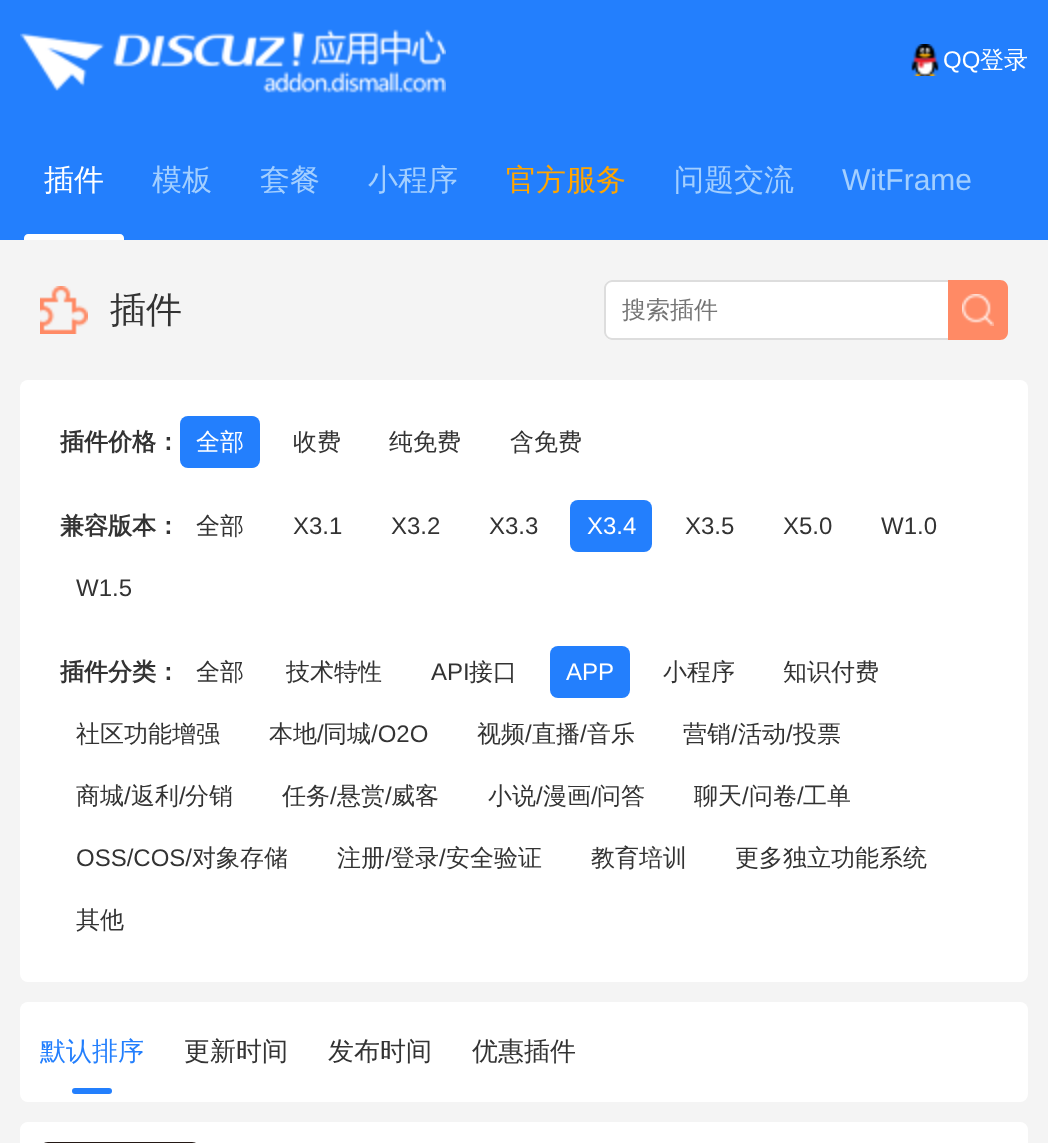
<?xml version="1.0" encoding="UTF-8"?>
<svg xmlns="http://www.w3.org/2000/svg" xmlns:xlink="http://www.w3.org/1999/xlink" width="1048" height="1143">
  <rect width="100%" height="100%" fill="#f4f4f4" />
  <rect width="1048" height="240" fill="#237ffd" />
  <image x="20" y="29" width="426" height="64" xlink:href="image1.png" />
  <image x="911" y="44" width="28" height="32" xlink:href="image2.png" />
  <path d="M 28 234 h 92 c 2 0 4 2 4 4 v 2 h -100 v -2 c 0 -2 2 -4 4 -4 z" fill="#ffffff" />
  <image x="40" y="286" width="48" height="48" xlink:href="image3.png" />
  <path d="M 612 280 h 336 v 60 h -336 c -4.5 0 -8 -3.5 -8 -8 v -44 c 0 -4.5 3.5 -8 8 -8 z" fill="#ffffff" />
  <path d="M 612 280 h 336 v 60 h -336 c -4 0 -8 -4 -8 -8 v -44 c 0 -4 4 -8 8 -8 z m 0 2 h 336 v 56 h -336 c -3 0 -6 -3 -6 -6 v -44 c 0 -3 3 -6 6 -6 z" fill="#dddddd" fill-rule="evenodd" />
  <path d="M 948 280 h 52 c 4.5 0 8 3.5 8 8 v 44 c 0 4.5 -3.5 8 -8 8 h -52 z" fill="#ff8a65" />
  <image x="962" y="294" width="32" height="32" xlink:href="image4.png" />
  <rect x="20" y="380" width="1008" height="602" rx="8" fill="#ffffff" />
  <rect x="180" y="416" width="80" height="52" rx="8" fill="#237ffd" />
  <rect x="570" y="500" width="82" height="52" rx="8" fill="#237ffd" />
  <rect x="550" y="646" width="80" height="52" rx="8" fill="#237ffd" />
  <rect x="20" y="1002" width="1008" height="100" rx="8" fill="#ffffff" />
  <rect x="72" y="1088" width="40" height="6" rx="3" fill="#237ffd" />
  <rect x="21" y="1123" width="1006" height="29" rx="7" fill="#ffffff" stroke="#ffffff" stroke-width="2" />
  <image x="44" y="1142" width="152" height="1" xlink:href="image5.png" />
  <text x="943" y="68" style="font-family: Liberation Sans; font-size: 24px; fill: #ffffff">QQ</text>
  <text x="980" y="68" style="font-family: WenQuanYi Zen Hei; font-size: 24px; font-weight: 500; fill: #ffffff">登录</text>
  <text x="44" y="190" style="font-family: WenQuanYi Zen Hei; font-size: 30px; font-weight: 500; fill: #ffffff">插件</text>
  <text x="152" y="190" style="font-family: WenQuanYi Zen Hei; font-size: 30px; font-weight: 500; fill: #a3cfff">模板</text>
  <text x="260" y="190" style="font-family: WenQuanYi Zen Hei; font-size: 30px; font-weight: 500; fill: #a3cfff">套餐</text>
  <text x="368" y="190" style="font-family: WenQuanYi Zen Hei; font-size: 30px; font-weight: 500; fill: #a3cfff">小程序</text>
  <text x="506" y="190" style="font-family: WenQuanYi Zen Hei; font-size: 30px; font-weight: 500; fill: #ffa500">官方服务</text>
  <text x="674" y="190" style="font-family: WenQuanYi Zen Hei; font-size: 30px; font-weight: 500; fill: #a3cfff">问题交流</text>
  <text x="842" y="190" style="font-family: Liberation Sans; font-size: 30px; fill: #a3cfff">WitFrame</text>
  <text x="110" y="322" style="font-family: WenQuanYi Zen Hei; font-size: 36px; font-weight: 500; fill: #333333">插件</text>
  <text x="622" y="318" style="font-family: WenQuanYi Zen Hei; font-size: 24px; font-weight: 500; fill: #757575">搜索插件</text>
  <text x="60" y="450" style="font-family: WenQuanYi Zen Hei; font-size: 24px; font-weight: bold; fill: #333333">插件价格：</text>
  <text x="196" y="450" style="font-family: WenQuanYi Zen Hei; font-size: 24px; font-weight: 500; fill: #ffffff">全部</text>
  <text x="293" y="450" style="font-family: WenQuanYi Zen Hei; font-size: 24px; font-weight: 500; fill: #333333">收费</text>
  <text x="389" y="450" style="font-family: WenQuanYi Zen Hei; font-size: 24px; font-weight: 500; fill: #333333">纯免费</text>
  <text x="510" y="450" style="font-family: WenQuanYi Zen Hei; font-size: 24px; font-weight: 500; fill: #333333">含免费</text>
  <text x="60" y="534" style="font-family: WenQuanYi Zen Hei; font-size: 24px; font-weight: bold; fill: #333333">兼容版本：</text>
  <text x="196" y="534" style="font-family: WenQuanYi Zen Hei; font-size: 24px; font-weight: 500; fill: #333333">全部</text>
  <text x="293" y="534" style="font-family: Liberation Sans; font-size: 24px; fill: #333333">X3.1</text>
  <text x="391" y="534" style="font-family: Liberation Sans; font-size: 24px; fill: #333333">X3.2</text>
  <text x="489" y="534" style="font-family: Liberation Sans; font-size: 24px; fill: #333333">X3.3</text>
  <text x="587" y="534" style="font-family: Liberation Sans; font-size: 24px; fill: #ffffff">X3.4</text>
  <text x="685" y="534" style="font-family: Liberation Sans; font-size: 24px; fill: #333333">X3.5</text>
  <text x="783" y="534" style="font-family: Liberation Sans; font-size: 24px; fill: #333333">X5.0</text>
  <text x="881" y="534" style="font-family: Liberation Sans; font-size: 24px; fill: #333333">W1.0</text>
  <text x="76" y="596" style="font-family: Liberation Sans; font-size: 24px; fill: #333333">W1.5</text>
  <text x="196" y="680" style="font-family: WenQuanYi Zen Hei; font-size: 24px; font-weight: 500; fill: #333333">全部</text>
  <text x="286" y="680" style="font-family: WenQuanYi Zen Hei; font-size: 24px; font-weight: 500; fill: #333333">技术特性</text>
  <text x="431" y="680" style="font-family: Liberation Sans; font-size: 24px; fill: #333333">API</text>
  <text x="469" y="680" style="font-family: WenQuanYi Zen Hei; font-size: 24px; font-weight: 500; fill: #333333">接口</text>
  <text x="566" y="680" style="font-family: Liberation Sans; font-size: 24px; fill: #ffffff">APP</text>
  <text x="663" y="680" style="font-family: WenQuanYi Zen Hei; font-size: 24px; font-weight: 500; fill: #333333">小程序</text>
  <text x="783" y="680" style="font-family: WenQuanYi Zen Hei; font-size: 24px; font-weight: 500; fill: #333333">知识付费</text>
  <text x="76" y="742" style="font-family: WenQuanYi Zen Hei; font-size: 24px; font-weight: 500; fill: #333333">社区功能增强</text>
  <text x="269" y="742" style="font-family: WenQuanYi Zen Hei; font-size: 24px; font-weight: 500; fill: #333333">本地</text>
  <text x="317" y="742" style="font-family: Liberation Sans; font-size: 24px; fill: #333333">/</text>
  <text x="323" y="742" style="font-family: WenQuanYi Zen Hei; font-size: 24px; font-weight: 500; fill: #333333">同城</text>
  <text x="371" y="742" style="font-family: Liberation Sans; font-size: 24px; fill: #333333">/O2O</text>
  <text x="477" y="742" style="font-family: WenQuanYi Zen Hei; font-size: 24px; font-weight: 500; fill: #333333">视频</text>
  <text x="525" y="742" style="font-family: Liberation Sans; font-size: 24px; fill: #333333">/</text>
  <text x="532" y="742" style="font-family: WenQuanYi Zen Hei; font-size: 24px; font-weight: 500; fill: #333333">直播</text>
  <text x="580" y="742" style="font-family: Liberation Sans; font-size: 24px; fill: #333333">/</text>
  <text x="587" y="742" style="font-family: WenQuanYi Zen Hei; font-size: 24px; font-weight: 500; fill: #333333">音乐</text>
  <text x="683" y="742" style="font-family: WenQuanYi Zen Hei; font-size: 24px; font-weight: 500; fill: #333333">营销</text>
  <text x="731" y="742" style="font-family: Liberation Sans; font-size: 24px; fill: #333333">/</text>
  <text x="738" y="742" style="font-family: WenQuanYi Zen Hei; font-size: 24px; font-weight: 500; fill: #333333">活动</text>
  <text x="786" y="742" style="font-family: Liberation Sans; font-size: 24px; fill: #333333">/</text>
  <text x="793" y="742" style="font-family: WenQuanYi Zen Hei; font-size: 24px; font-weight: 500; fill: #333333">投票</text>
  <text x="76" y="804" style="font-family: WenQuanYi Zen Hei; font-size: 24px; font-weight: 500; fill: #333333">商城</text>
  <text x="124" y="804" style="font-family: Liberation Sans; font-size: 24px; fill: #333333">/</text>
  <text x="131" y="804" style="font-family: WenQuanYi Zen Hei; font-size: 24px; font-weight: 500; fill: #333333">返利</text>
  <text x="179" y="804" style="font-family: Liberation Sans; font-size: 24px; fill: #333333">/</text>
  <text x="185" y="804" style="font-family: WenQuanYi Zen Hei; font-size: 24px; font-weight: 500; fill: #333333">分销</text>
  <text x="282" y="804" style="font-family: WenQuanYi Zen Hei; font-size: 24px; font-weight: 500; fill: #333333">任务</text>
  <text x="330" y="804" style="font-family: Liberation Sans; font-size: 24px; fill: #333333">/</text>
  <text x="337" y="804" style="font-family: WenQuanYi Zen Hei; font-size: 24px; font-weight: 500; fill: #333333">悬赏</text>
  <text x="385" y="804" style="font-family: Liberation Sans; font-size: 24px; fill: #333333">/</text>
  <text x="391" y="804" style="font-family: WenQuanYi Zen Hei; font-size: 24px; font-weight: 500; fill: #333333">威客</text>
  <text x="488" y="804" style="font-family: WenQuanYi Zen Hei; font-size: 24px; font-weight: 500; fill: #333333">小说</text>
  <text x="536" y="804" style="font-family: Liberation Sans; font-size: 24px; fill: #333333">/</text>
  <text x="543" y="804" style="font-family: WenQuanYi Zen Hei; font-size: 24px; font-weight: 500; fill: #333333">漫画</text>
  <text x="591" y="804" style="font-family: Liberation Sans; font-size: 24px; fill: #333333">/</text>
  <text x="597" y="804" style="font-family: WenQuanYi Zen Hei; font-size: 24px; font-weight: 500; fill: #333333">问答</text>
  <text x="694" y="804" style="font-family: WenQuanYi Zen Hei; font-size: 24px; font-weight: 500; fill: #333333">聊天</text>
  <text x="742" y="804" style="font-family: Liberation Sans; font-size: 24px; fill: #333333">/</text>
  <text x="749" y="804" style="font-family: WenQuanYi Zen Hei; font-size: 24px; font-weight: 500; fill: #333333">问卷</text>
  <text x="797" y="804" style="font-family: Liberation Sans; font-size: 24px; fill: #333333">/</text>
  <text x="803" y="804" style="font-family: WenQuanYi Zen Hei; font-size: 24px; font-weight: 500; fill: #333333">工单</text>
  <text x="76" y="866" style="font-family: Liberation Sans; font-size: 24px; fill: #333333">OSS/COS/</text>
  <text x="192" y="866" style="font-family: WenQuanYi Zen Hei; font-size: 24px; font-weight: 500; fill: #333333">对象存储</text>
  <text x="337" y="866" style="font-family: WenQuanYi Zen Hei; font-size: 24px; font-weight: 500; fill: #333333">注册</text>
  <text x="385" y="866" style="font-family: Liberation Sans; font-size: 24px; fill: #333333">/</text>
  <text x="391" y="866" style="font-family: WenQuanYi Zen Hei; font-size: 24px; font-weight: 500; fill: #333333">登录</text>
  <text x="439" y="866" style="font-family: Liberation Sans; font-size: 24px; fill: #333333">/</text>
  <text x="446" y="866" style="font-family: WenQuanYi Zen Hei; font-size: 24px; font-weight: 500; fill: #333333">安全验证</text>
  <text x="591" y="866" style="font-family: WenQuanYi Zen Hei; font-size: 24px; font-weight: 500; fill: #333333">教育培训</text>
  <text x="735" y="866" style="font-family: WenQuanYi Zen Hei; font-size: 24px; font-weight: 500; fill: #333333">更多独立功能系统</text>
  <text x="76" y="928" style="font-family: WenQuanYi Zen Hei; font-size: 24px; font-weight: 500; fill: #333333">其他</text>
  <text x="60" y="680" style="font-family: WenQuanYi Zen Hei; font-size: 24px; font-weight: bold; fill: #333333">插件分类：</text>
  <text x="40" y="1060" style="font-family: WenQuanYi Zen Hei; font-size: 26px; font-weight: 500; fill: #237ffd">默认排序</text>
  <text x="184" y="1060" style="font-family: WenQuanYi Zen Hei; font-size: 26px; font-weight: 500; fill: #333333">更新时间</text>
  <text x="328" y="1060" style="font-family: WenQuanYi Zen Hei; font-size: 26px; font-weight: 500; fill: #333333">发布时间</text>
  <text x="472" y="1060" style="font-family: WenQuanYi Zen Hei; font-size: 26px; font-weight: 500; fill: #333333">优惠插件</text>
</svg>
